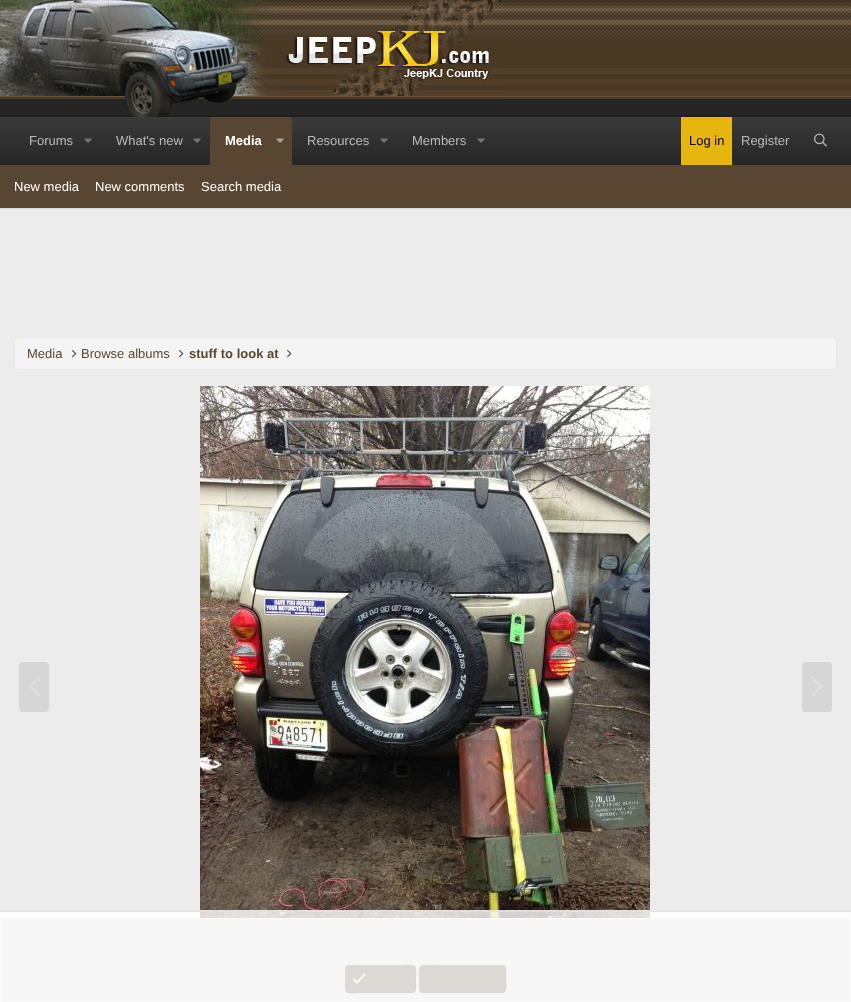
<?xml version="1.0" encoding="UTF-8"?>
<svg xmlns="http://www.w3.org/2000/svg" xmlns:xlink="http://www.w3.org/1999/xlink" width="851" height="1002">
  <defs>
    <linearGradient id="g1" gradientUnits="userSpaceOnUse" x1="426" y1="117" x2="426" y2="165"><stop offset="0" stop-color="#3a3a3a" /><stop offset="1" stop-color="#262626" /></linearGradient>
  </defs>
  <rect width="100%" height="100%" fill="#ececec" />
  <rect x="504" y="115" width="347" height="2" fill="#1f1f1f" />
  <image x="504" y="0" width="347" height="115" xlink:href="image1.png" />
  <image x="0" y="0" width="504" height="117" xlink:href="image2.png" />
  <rect y="117" width="851" height="48" fill="url(#g1)" />
  <image x="84" y="138" width="8" height="5" xlink:href="image3.png" />
  <image x="193" y="138" width="8" height="5" xlink:href="image3.png" />
  <path d="M 212 117 h 78 c 1 0 2 1 2 2 v 46 h -82 v -46 c 0 -1 1 -2 2 -2 z" fill="#584632" />
  <image x="276" y="138" width="8" height="5" xlink:href="image4.png" />
  <image x="380" y="138" width="8" height="5" xlink:href="image3.png" />
  <image x="477" y="138" width="8" height="5" xlink:href="image3.png" />
  <rect x="681" y="117" width="51" height="48" fill="#e6b60e" />
  <image x="814" y="133" width="13" height="14" xlink:href="image5.png" />
  <rect y="165" width="851" height="43" fill="#584632" />
  <rect y="208" width="851" height="1" fill="#dbdbdb" />
  <rect x="14.5" y="337.5" width="822" height="32" rx="3.5" fill="#f4f4f4" stroke="#e8e8e8" />
  <image x="72" y="350" width="5" height="8" xlink:href="image6.png" />
  <image x="179" y="350" width="5" height="8" xlink:href="image6.png" />
  <image x="287" y="350" width="5" height="8" xlink:href="image6.png" />
  <rect x="19" y="662" width="30" height="50" rx="4" fill="#d6d6d6" />
  <image x="29" y="676" width="12" height="21" xlink:href="image7.png" />
  <image x="200" y="386" width="450" height="532" xlink:href="image8.png" />
  <rect x="802" y="662" width="30" height="50" rx="4" fill="#d6d6d6" />
  <image x="811" y="676" width="12" height="21" xlink:href="image9.png" />
  <rect x="1" y="919" width="849" height="82" fill="#d8d8d8" />
  <rect y="918" width="851" height="1" fill="#e8e8e8" />
  <rect x="850" y="918" width="1" height="84" fill="#e8e8e8" />
  <rect y="1001" width="851" height="1" fill="#dbdbdb" />
  <rect y="918" width="1" height="84" fill="#e8e8e8" />
  <rect x="345" y="965" width="71" height="28" rx="4" fill="#584632" />
  <path d="M 414.5 966.5 c 2 2.5 1 10 1 12.5 c 0 15.5 2 13.5 -14 13.5 h -42 c -1 0 -10.5 1.5 -13 -1" fill="none" stroke="#483929" />
  <path d="M 346.5 991.5 c -2 -2.5 -1 -10 -1 -12.5 c 0 -15.5 -2 -13.5 14 -13.5 h 42 c 1 0 10.5 -1.5 13 1" fill="none" stroke="#68533b" />
  <image x="352" y="973" width="14" height="11" xlink:href="image10.png" />
  <rect x="419" y="965" width="87" height="28" rx="4" fill="#584632" />
  <path d="M 504.5 966.5 c 2 2 1 6.5 1 9 c 0 19.5 3.5 17 -16.5 17 h -66 l -2.5 -1" fill="none" stroke="#483929" />
  <path d="M 420.5 991.5 c -2 -2 -1 -6.5 -1 -9 c 0 -19.5 -3.5 -17 16.5 -17 h 66 l 2.5 1" fill="none" stroke="#68533b" />
  <rect y="910" width="851" height="92" fill="#ffffff" fill-opacity="0.8" />
  <rect y="910" width="851" height="2" fill="#e1e1e1" fill-opacity="0.8" />
  <text x="29" y="145" style="font-family: Liberation Sans; font-size: 13px; fill: #bababa">Forums</text>
  <text x="116" y="145" style="font-family: Liberation Sans; font-size: 13px; fill: #bababa">What's new</text>
  <text x="225" y="145" style="font-family: Liberation Sans; font-size: 13px; font-weight: bold; fill: #ffffff">Media</text>
  <text x="307" y="145" style="font-family: Liberation Sans; font-size: 13px; fill: #bababa">Resources</text>
  <text x="412" y="145" style="font-family: Liberation Sans; font-size: 13px; fill: #bababa">Members</text>
  <text x="689" y="145" style="font-family: Liberation Sans; font-size: 13px; fill: #000000">Log in</text>
  <text x="741" y="145" style="font-family: Liberation Sans; font-size: 13px; fill: #bababa">Register</text>
  <text x="14" y="191" style="font-family: Liberation Sans; font-size: 13px; fill: #ffffff">New media</text>
  <text x="95" y="191" style="font-family: Liberation Sans; font-size: 13px; fill: #ffffff">New comments</text>
  <text x="201" y="191" style="font-family: Liberation Sans; font-size: 13px; fill: #ffffff">Search media</text>
  <text x="27" y="358" style="font-family: Liberation Sans; font-size: 13px; fill: #584632">Media</text>
  <text x="81" y="358" style="font-family: Liberation Sans; font-size: 13px; fill: #584632">Browse albums</text>
  <text x="189" y="358" style="font-family: Liberation Sans; font-size: 13px; font-weight: bold; fill: #584632">stuff to look at</text>
</svg>
